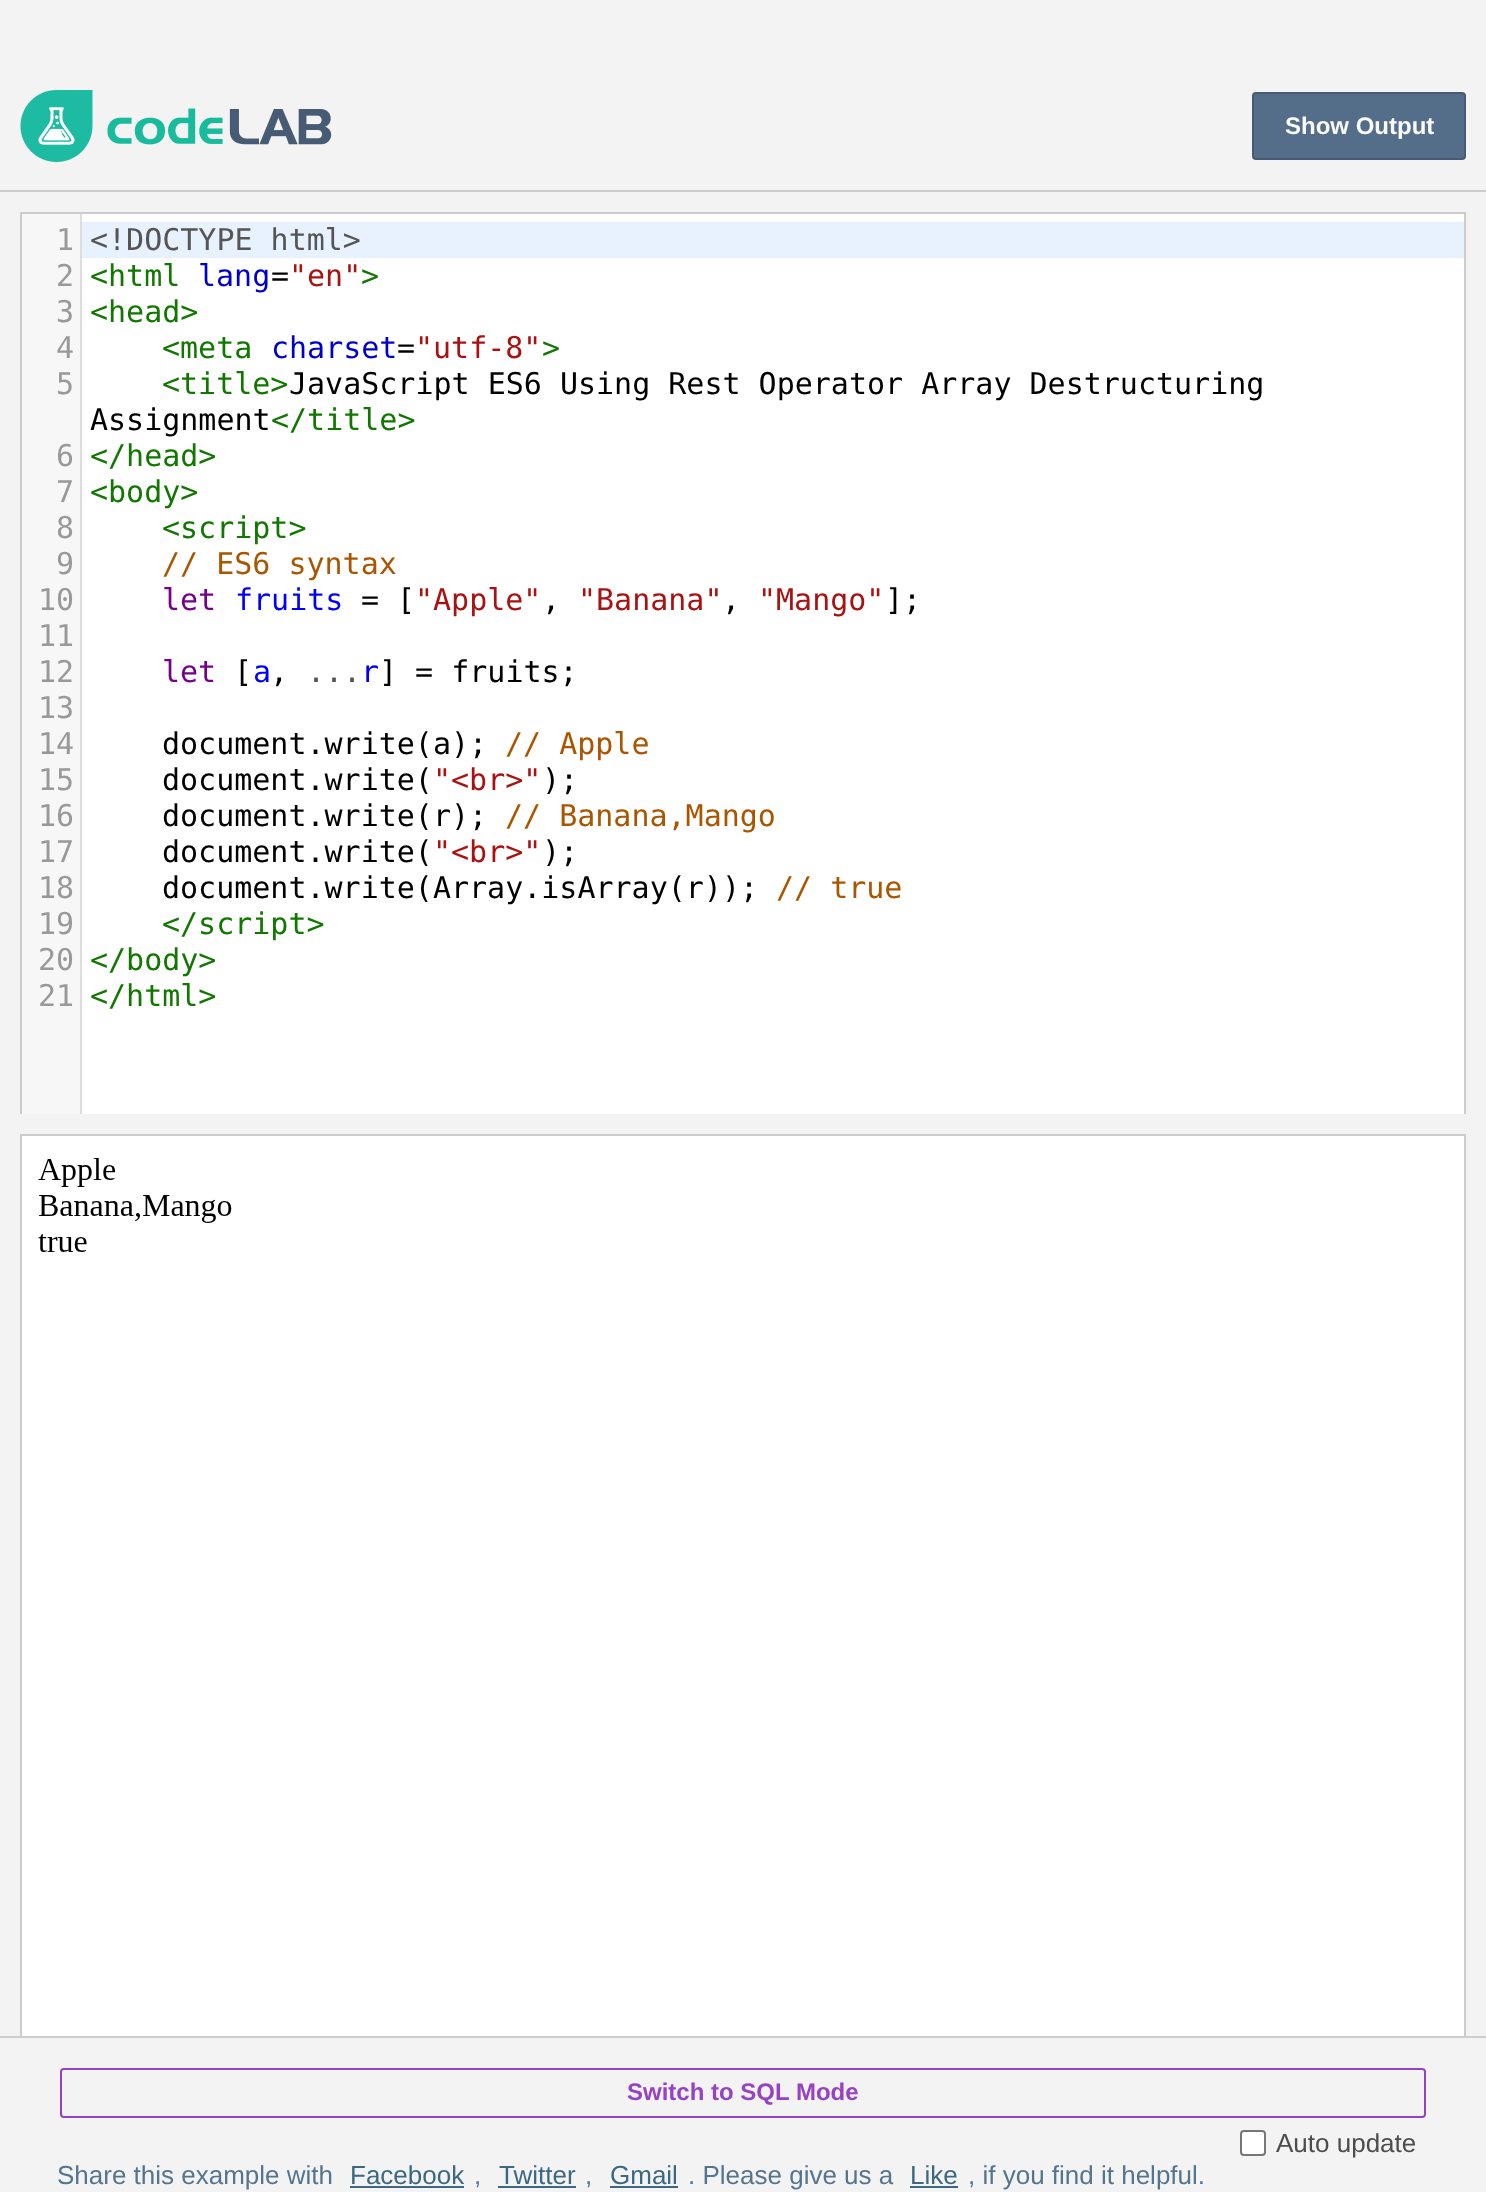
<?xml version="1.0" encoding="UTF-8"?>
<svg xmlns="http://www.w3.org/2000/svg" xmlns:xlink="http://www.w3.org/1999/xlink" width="1486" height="2192">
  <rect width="100%" height="100%" fill="#f3f3f3" />
  <rect y="190" width="1486" height="2" fill="#cccccc" />
  <image x="20" y="90" width="312" height="72" xlink:href="image1.png" />
  <rect x="1253" y="93" width="212" height="66" rx="3" fill="#546d88" stroke="#475c74" stroke-width="2" />
  <rect x="82" y="214" width="1382" height="900" fill="#ffffff" />
  <rect x="20" y="212" width="1446" height="2" fill="#cccccc" />
  <rect x="1464" y="212" width="2" height="902" fill="#cccccc" />
  <rect x="20" y="212" width="2" height="902" fill="#cccccc" />
  <rect x="22" y="214" width="58" height="900" fill="#f7f7f7" />
  <rect x="80" y="214" width="2" height="900" fill="#dddddd" />
  <rect x="82" y="222" width="1382" height="36" fill="#e8f2ff" />
  <rect x="20" y="1134" width="1446" height="2" fill="#cccccc" />
  <rect x="1464" y="1134" width="2" height="902" fill="#cccccc" />
  <rect x="20" y="1134" width="2" height="902" fill="#cccccc" />
  <rect x="22" y="1136" width="1442" height="900" fill="#ffffff" />
  <image x="38" y="1158" width="194" height="94" xlink:href="image2.png" />
  <rect y="2036" width="1486" height="2" fill="#cccccc" />
  <rect x="61" y="2069" width="1364" height="48" rx="3" fill="none" stroke="#9542c4" stroke-width="2" />
  <rect x="1241" y="2131" width="24" height="24" rx="3" fill="#ffffff" stroke="#767676" stroke-width="2" />
  <rect x="350" y="2186" width="114" height="2" fill="#3c6880" />
  <rect x="498" y="2186" width="78" height="2" fill="#3c6880" />
  <rect x="610" y="2186" width="68" height="2" fill="#3c6880" />
  <rect x="910" y="2186" width="48" height="2" fill="#3c6880" />
  <text x="1285" y="134" style="font-family: Liberation Sans; font-size: 24px; font-weight: bold; fill: #fbfbfb">Show Output</text>
  <text x="56" y="250" style="font-family: DejaVu Sans Mono; font-size: 30px; fill: #999999">1</text>
  <text x="90" y="250" style="font-family: DejaVu Sans Mono; font-size: 30px; fill: #555555">&lt;!DOCTYPE html&gt;</text>
  <text x="56" y="286" style="font-family: DejaVu Sans Mono; font-size: 30px; fill: #999999">2</text>
  <text x="90" y="286" style="font-family: DejaVu Sans Mono; font-size: 30px; fill: #117700">&lt;html</text>
  <text x="198" y="286" style="font-family: DejaVu Sans Mono; font-size: 30px; fill: #0000cc">lang</text>
  <text x="271" y="286" style="font-family: DejaVu Sans Mono; font-size: 30px; fill: #000000">=</text>
  <text x="289" y="286" style="font-family: DejaVu Sans Mono; font-size: 30px; fill: #aa1111">"en"</text>
  <text x="361" y="286" style="font-family: DejaVu Sans Mono; font-size: 30px; fill: #117700">&gt;</text>
  <text x="56" y="322" style="font-family: DejaVu Sans Mono; font-size: 30px; fill: #999999">3</text>
  <text x="90" y="322" style="font-family: DejaVu Sans Mono; font-size: 30px; fill: #117700">&lt;head&gt;</text>
  <text x="56" y="358" style="font-family: DejaVu Sans Mono; font-size: 30px; fill: #999999">4</text>
  <text x="162" y="358" style="font-family: DejaVu Sans Mono; font-size: 30px; fill: #117700">&lt;meta</text>
  <text x="271" y="358" style="font-family: DejaVu Sans Mono; font-size: 30px; fill: #0000cc">charset</text>
  <text x="397" y="358" style="font-family: DejaVu Sans Mono; font-size: 30px; fill: #000000">=</text>
  <text x="415" y="358" style="font-family: DejaVu Sans Mono; font-size: 30px; fill: #aa1111">"utf-8"</text>
  <text x="542" y="358" style="font-family: DejaVu Sans Mono; font-size: 30px; fill: #117700">&gt;</text>
  <text x="56" y="394" style="font-family: DejaVu Sans Mono; font-size: 30px; fill: #999999">5</text>
  <text x="162" y="394" style="font-family: DejaVu Sans Mono; font-size: 30px; fill: #117700">&lt;title&gt;</text>
  <text x="289" y="394" style="font-family: DejaVu Sans Mono; font-size: 30px; fill: #000000">JavaScript ES6 Using Rest Operator Array Destructuring</text>
  <text x="90" y="430" style="font-family: DejaVu Sans Mono; font-size: 30px; fill: #000000">Assignment</text>
  <text x="271" y="430" style="font-family: DejaVu Sans Mono; font-size: 30px; fill: #117700">&lt;/title&gt;</text>
  <text x="56" y="466" style="font-family: DejaVu Sans Mono; font-size: 30px; fill: #999999">6</text>
  <text x="90" y="466" style="font-family: DejaVu Sans Mono; font-size: 30px; fill: #117700">&lt;/head&gt;</text>
  <text x="56" y="502" style="font-family: DejaVu Sans Mono; font-size: 30px; fill: #999999">7</text>
  <text x="90" y="502" style="font-family: DejaVu Sans Mono; font-size: 30px; fill: #117700">&lt;body&gt;</text>
  <text x="56" y="538" style="font-family: DejaVu Sans Mono; font-size: 30px; fill: #999999">8</text>
  <text x="162" y="538" style="font-family: DejaVu Sans Mono; font-size: 30px; fill: #117700">&lt;script&gt;</text>
  <text x="56" y="574" style="font-family: DejaVu Sans Mono; font-size: 30px; fill: #999999">9</text>
  <text x="162" y="574" style="font-family: DejaVu Sans Mono; font-size: 30px; fill: #aa5500">// ES6 syntax</text>
  <text x="38" y="610" style="font-family: DejaVu Sans Mono; font-size: 30px; fill: #999999">10</text>
  <text x="162" y="610" style="font-family: DejaVu Sans Mono; font-size: 30px; fill: #770088">let</text>
  <text x="235" y="610" style="font-family: DejaVu Sans Mono; font-size: 30px; fill: #0000ff">fruits</text>
  <text x="361" y="610" style="font-family: DejaVu Sans Mono; font-size: 30px; fill: #000000">= [</text>
  <text x="415" y="610" style="font-family: DejaVu Sans Mono; font-size: 30px; fill: #aa1111">"Apple"</text>
  <text x="542" y="610" style="font-family: DejaVu Sans Mono; font-size: 30px; fill: #000000">,</text>
  <text x="578" y="610" style="font-family: DejaVu Sans Mono; font-size: 30px; fill: #aa1111">"Banana"</text>
  <text x="722" y="610" style="font-family: DejaVu Sans Mono; font-size: 30px; fill: #000000">,</text>
  <text x="758" y="610" style="font-family: DejaVu Sans Mono; font-size: 30px; fill: #aa1111">"Mango"</text>
  <text x="885" y="610" style="font-family: DejaVu Sans Mono; font-size: 30px; fill: #000000">];</text>
  <text x="38" y="646" style="font-family: DejaVu Sans Mono; font-size: 30px; fill: #999999">11</text>
  <text x="38" y="682" style="font-family: DejaVu Sans Mono; font-size: 30px; fill: #999999">12</text>
  <text x="162" y="682" style="font-family: DejaVu Sans Mono; font-size: 30px; fill: #770088">let</text>
  <text x="234" y="682" style="font-family: DejaVu Sans Mono; font-size: 30px; fill: #000000">[ ,</text>
  <text x="379" y="682" style="font-family: DejaVu Sans Mono; font-size: 30px; fill: #000000">] = fruits;</text>
  <text x="253" y="682" style="font-family: DejaVu Sans Mono; font-size: 30px; fill: #0000ff">a</text>
  <text x="307" y="682" style="font-family: DejaVu Sans Mono; font-size: 30px; fill: #555555">...</text>
  <text x="361" y="682" style="font-family: DejaVu Sans Mono; font-size: 30px; fill: #0000ff">r</text>
  <text x="38" y="718" style="font-family: DejaVu Sans Mono; font-size: 30px; fill: #999999">13</text>
  <text x="38" y="754" style="font-family: DejaVu Sans Mono; font-size: 30px; fill: #999999">14</text>
  <text x="162" y="754" style="font-family: DejaVu Sans Mono; font-size: 30px; fill: #000000">document.write(a);</text>
  <text x="505" y="754" style="font-family: DejaVu Sans Mono; font-size: 30px; fill: #aa5500">// Apple</text>
  <text x="38" y="790" style="font-family: DejaVu Sans Mono; font-size: 30px; fill: #999999">15</text>
  <text x="162" y="790" style="font-family: DejaVu Sans Mono; font-size: 30px; fill: #000000">document.write(</text>
  <text x="433" y="790" style="font-family: DejaVu Sans Mono; font-size: 30px; fill: #aa1111">"&lt;br&gt;"</text>
  <text x="542" y="790" style="font-family: DejaVu Sans Mono; font-size: 30px; fill: #000000">);</text>
  <text x="38" y="826" style="font-family: DejaVu Sans Mono; font-size: 30px; fill: #999999">16</text>
  <text x="162" y="826" style="font-family: DejaVu Sans Mono; font-size: 30px; fill: #000000">document.write(r);</text>
  <text x="505" y="826" style="font-family: DejaVu Sans Mono; font-size: 30px; fill: #aa5500">// Banana,Mango</text>
  <text x="38" y="862" style="font-family: DejaVu Sans Mono; font-size: 30px; fill: #999999">17</text>
  <text x="162" y="862" style="font-family: DejaVu Sans Mono; font-size: 30px; fill: #000000">document.write(</text>
  <text x="433" y="862" style="font-family: DejaVu Sans Mono; font-size: 30px; fill: #aa1111">"&lt;br&gt;"</text>
  <text x="542" y="862" style="font-family: DejaVu Sans Mono; font-size: 30px; fill: #000000">);</text>
  <text x="38" y="898" style="font-family: DejaVu Sans Mono; font-size: 30px; fill: #999999">18</text>
  <text x="162" y="898" style="font-family: DejaVu Sans Mono; font-size: 30px; fill: #000000">document.write(Array.isArray(r));</text>
  <text x="776" y="898" style="font-family: DejaVu Sans Mono; font-size: 30px; fill: #aa5500">// true</text>
  <text x="38" y="934" style="font-family: DejaVu Sans Mono; font-size: 30px; fill: #999999">19</text>
  <text x="162" y="934" style="font-family: DejaVu Sans Mono; font-size: 30px; fill: #117700">&lt;/script&gt;</text>
  <text x="38" y="970" style="font-family: DejaVu Sans Mono; font-size: 30px; fill: #999999">20</text>
  <text x="90" y="970" style="font-family: DejaVu Sans Mono; font-size: 30px; fill: #117700">&lt;/body&gt;</text>
  <text x="38" y="1006" style="font-family: DejaVu Sans Mono; font-size: 30px; fill: #999999">21</text>
  <text x="90" y="1006" style="font-family: DejaVu Sans Mono; font-size: 30px; fill: #117700">&lt;/html&gt;</text>
  <text x="627" y="2100" style="font-family: Liberation Sans; font-size: 24px; font-weight: bold; fill: #9542c4">Switch to SQL Mode</text>
  <text x="1276" y="2152" style="font-family: Liberation Sans; font-size: 26px; fill: #4d4d4d">Auto update</text>
  <text x="57" y="2184" style="font-family: Liberation Sans; font-size: 26px; fill: #55748e">Share this example with</text>
  <text x="350" y="2184" style="font-family: Liberation Sans; font-size: 26px; fill: #3c6880">Facebook</text>
  <text x="474" y="2184" style="font-family: Liberation Sans; font-size: 26px; fill: #55748e">,</text>
  <text x="499" y="2184" style="font-family: Liberation Sans; font-size: 26px; fill: #3c6880">Twitter</text>
  <text x="585" y="2184" style="font-family: Liberation Sans; font-size: 26px; fill: #55748e">,</text>
  <text x="610" y="2184" style="font-family: Liberation Sans; font-size: 26px; fill: #3c6880">Gmail</text>
  <text x="688" y="2184" style="font-family: Liberation Sans; font-size: 26px; fill: #55748e">. Please give us a</text>
  <text x="910" y="2184" style="font-family: Liberation Sans; font-size: 26px; fill: #3c6880">Like</text>
  <text x="968" y="2184" style="font-family: Liberation Sans; font-size: 26px; fill: #55748e">, if you find it helpful.</text>
</svg>
